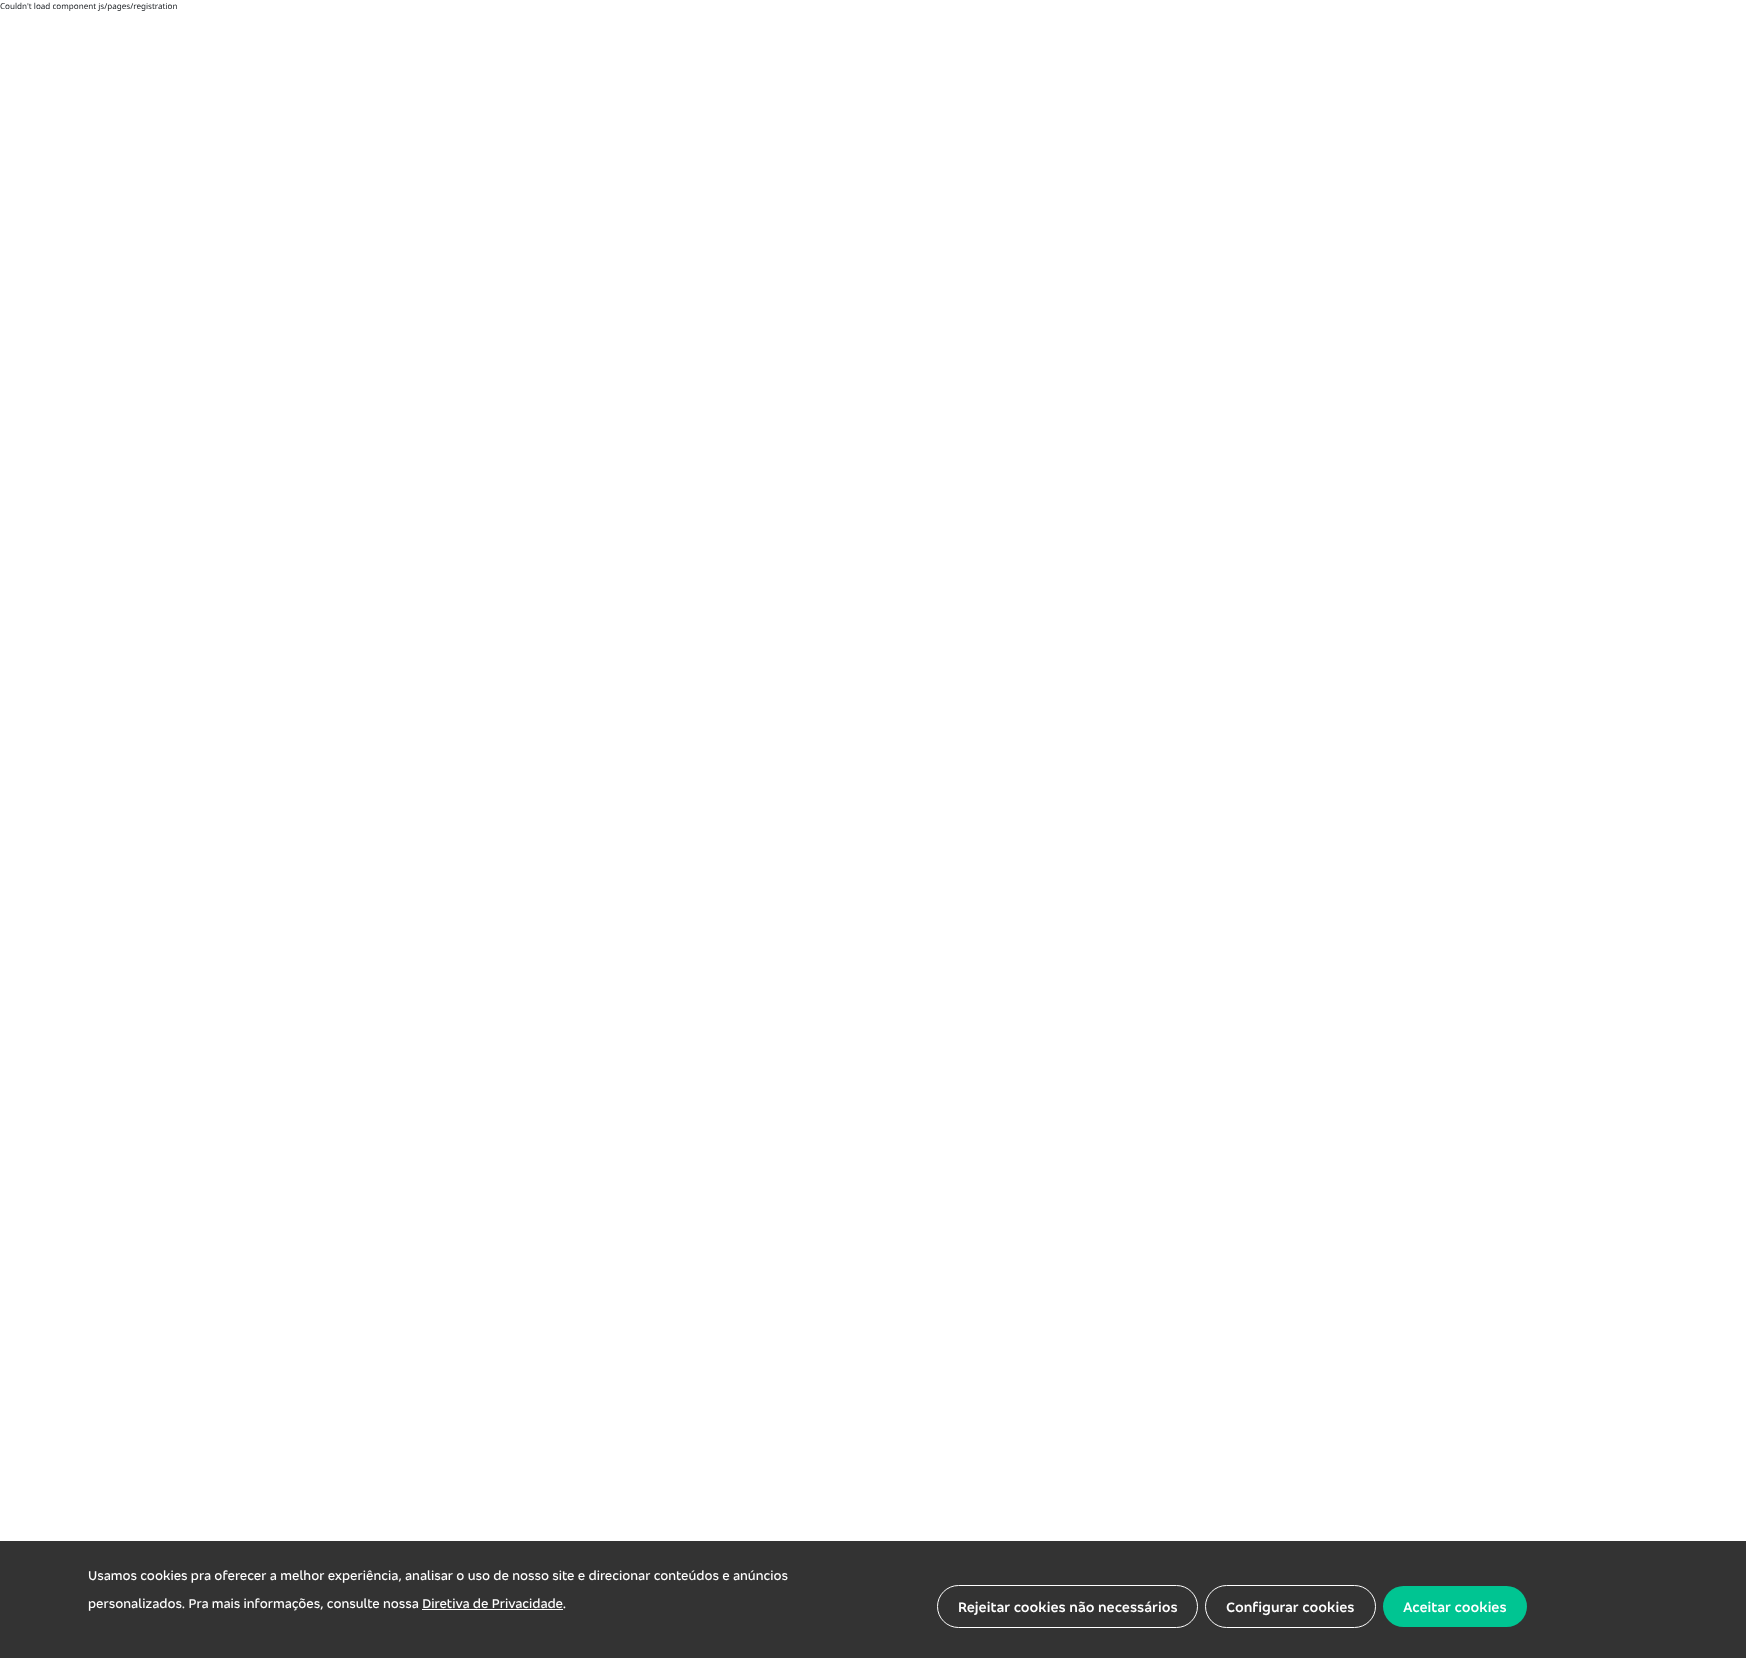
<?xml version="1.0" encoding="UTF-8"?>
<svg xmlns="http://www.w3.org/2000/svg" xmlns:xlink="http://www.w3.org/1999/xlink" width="1746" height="1658">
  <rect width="100%" height="100%" fill="#ffffff" />
  <rect y="1541" width="1746" height="117" fill="#333333" />
  <rect x="422" y="1609" width="141" height="1" fill="#ffffff" />
  <rect x="937.5" y="1585.5" width="260" height="42" rx="21" fill="none" stroke="#ffffff" />
  <rect x="1205.5" y="1585.5" width="170" height="42" rx="21" fill="none" stroke="#ffffff" />
  <rect x="1383" y="1586" width="144" height="41" rx="20.5" fill="#00c592" />
  <text x="0" y="9" style="font-family: Noto Sans; font-size: 8.1px; fill: #212529">Couldn't load component js/pages/registration</text>
  <text x="88" y="1580" style="font-family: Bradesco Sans; font-size: 13px; font-weight: 500; fill: #ffffff">Usamos cookies pra oferecer a melhor experiência, analisar o uso de nosso site e direcionar conteúdos e anúncios</text>
  <text x="88" y="1608" style="font-family: Bradesco Sans; font-size: 13px; font-weight: 500; fill: #ffffff">personalizados. Pra mais informações, consulte nossa Diretiva de Privacidade.</text>
  <text x="958" y="1612" style="font-family: Bradesco Sans; font-size: 14px; font-weight: 600; fill: #ffffff">Rejeitar cookies não necessários</text>
  <text x="1226" y="1612" style="font-family: Bradesco Sans; font-size: 14px; font-weight: 600; fill: #ffffff">Configurar cookies</text>
  <text x="1403" y="1612" style="font-family: Bradesco Sans; font-size: 14px; font-weight: 600; fill: #ffffff">Aceitar cookies</text>
</svg>
